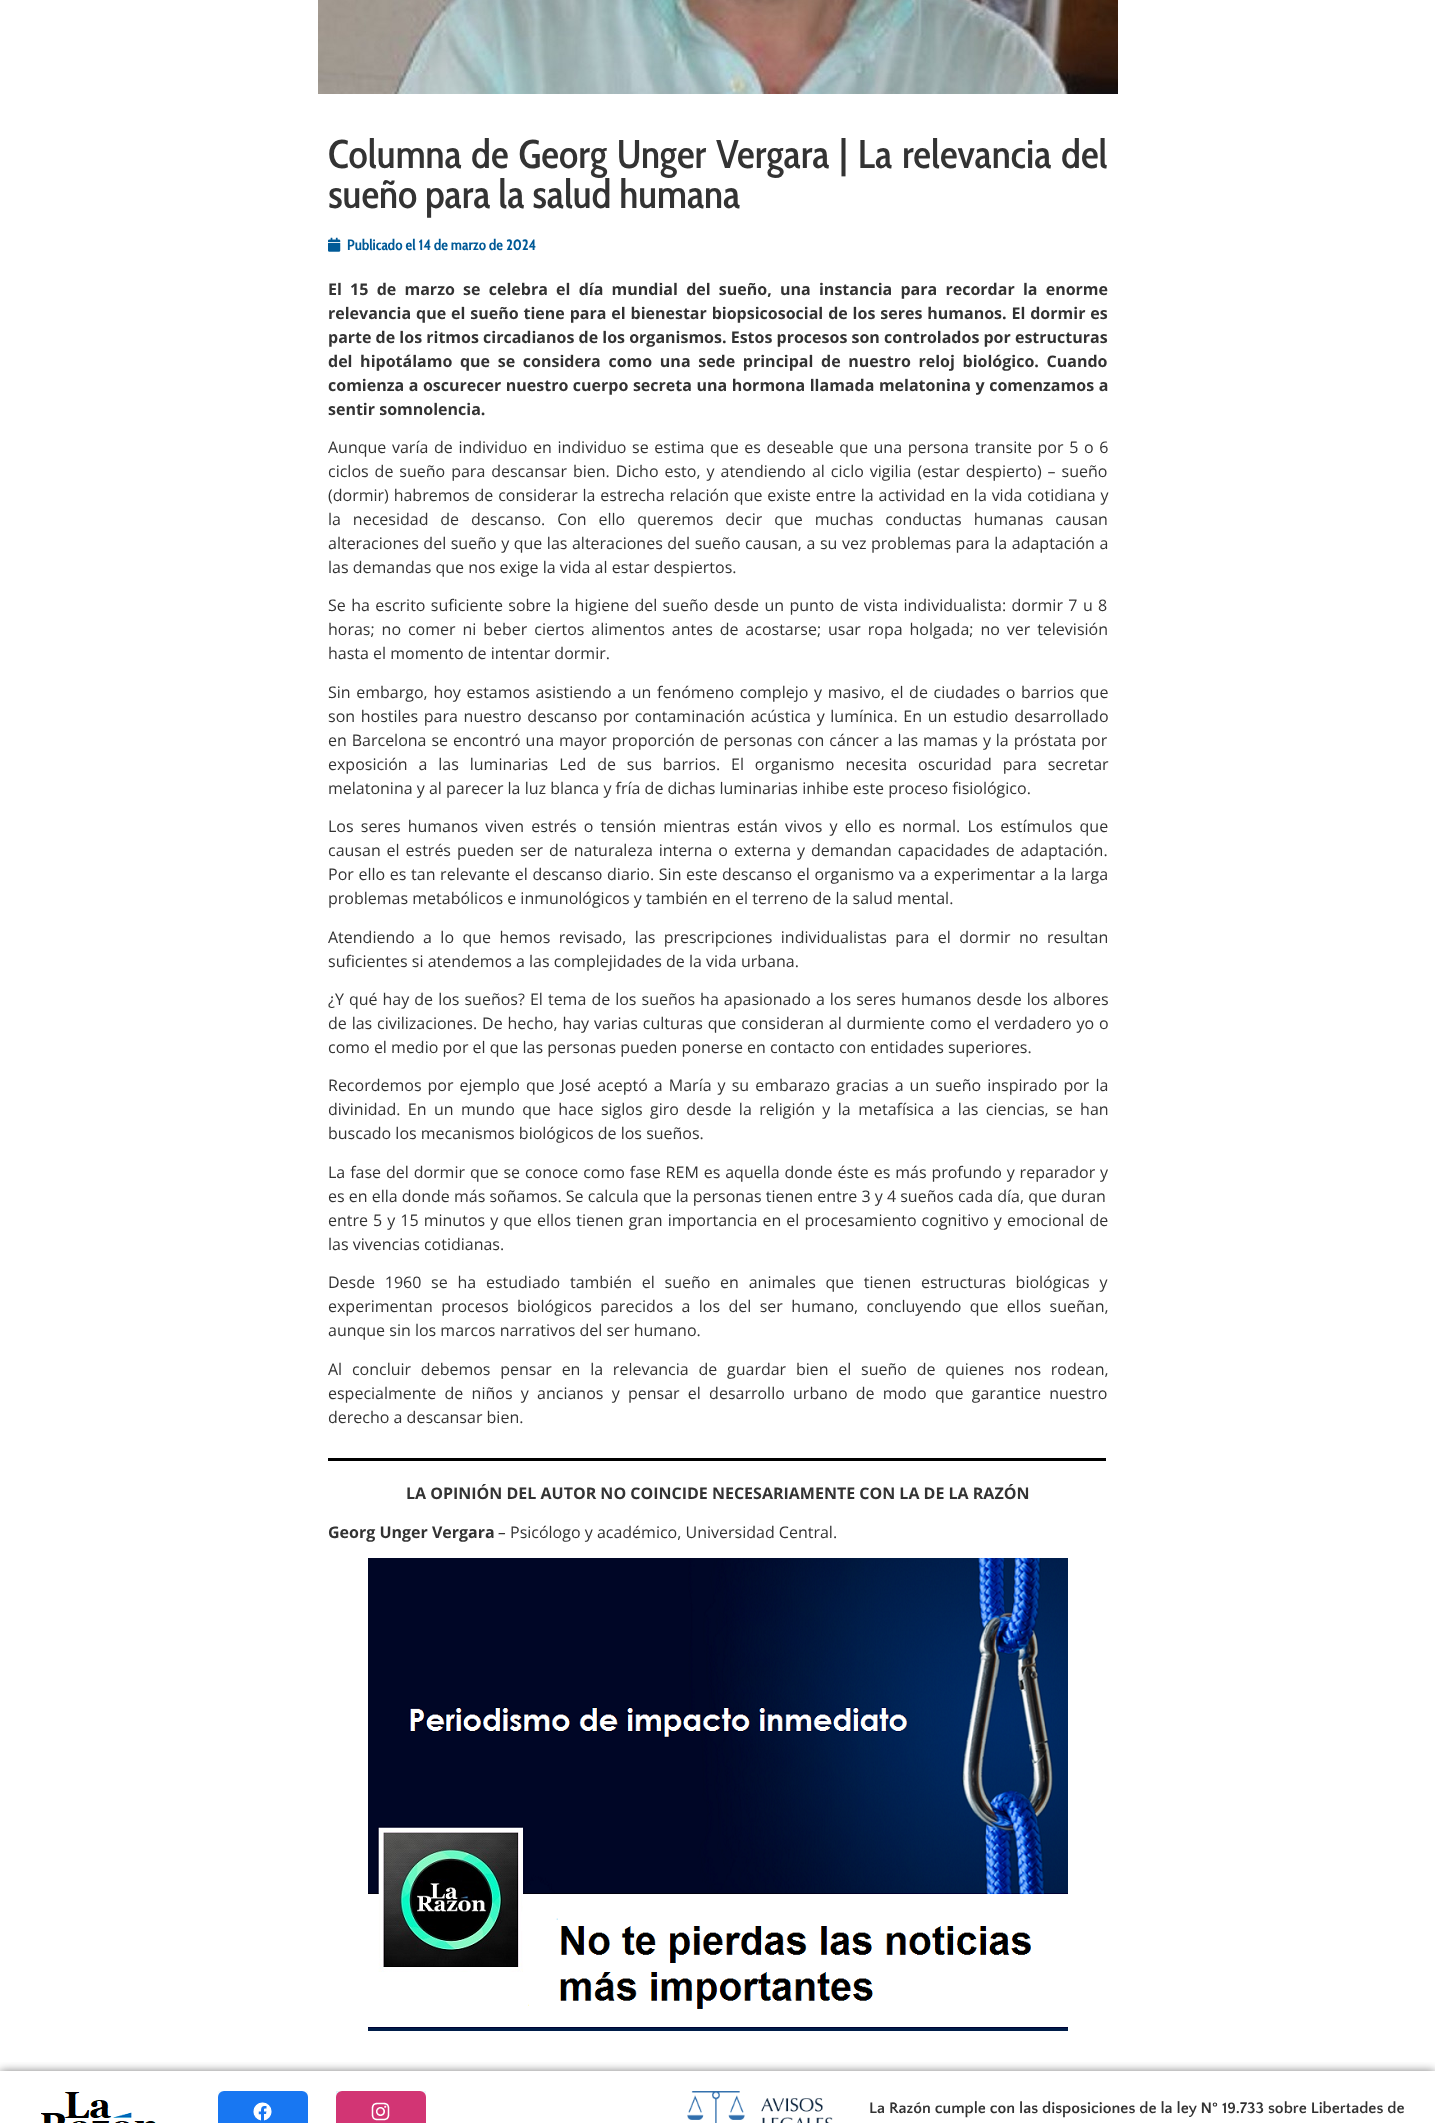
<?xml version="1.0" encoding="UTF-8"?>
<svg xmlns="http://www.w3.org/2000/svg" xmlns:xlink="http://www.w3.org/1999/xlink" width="1435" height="2123">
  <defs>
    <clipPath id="clip1"><rect x="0" y="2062" width="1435" height="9" /></clipPath>
  </defs>
  <rect width="100%" height="100%" fill="#ffffff" />
  <image x="318" y="0" width="800" height="94" xlink:href="image1.png" />
  <image x="328" y="237" width="13" height="15" xlink:href="image2.png" />
  <rect x="328" y="1458" width="778" height="3" fill="#000000" />
  <image x="368" y="1558" width="700" height="473" xlink:href="image3.png" />
  <g clip-path="url(#clip1)">
    <rect y="2071" width="1435" height="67" fill="#000000" fill-opacity="0.5" filter="blur(5px)" />
  </g>
  <image x="41" y="2092" width="115" height="31" xlink:href="image4.png" />
  <image x="218" y="2091" width="90" height="32" xlink:href="image5.png" />
  <image x="336" y="2091" width="90" height="32" xlink:href="image6.png" />
  <image x="687" y="2091" width="146" height="32" xlink:href="image7.png" />
  <text x="328" y="168" word-spacing="2" style="font-family: Cabin Condensed; font-size: 40px; font-weight: 500; fill: #333333">Columna de Georg Unger Vergara | La relevancia del</text>
  <text x="328" y="208" style="font-family: Cabin Condensed; font-size: 40px; font-weight: 500; fill: #333333">sueño para la salud humana</text>
  <text x="347" y="250" style="font-family: Cabin Condensed; font-size: 15px; font-weight: bold; fill: #005a97">Publicado el 14 de marzo de 2024</text>
  <text x="328" y="295" word-spacing="4.1" style="font-family: Open Sans; font-size: 16px; font-weight: bold; fill: #333333">El 15 de marzo se celebra el día mundial del sueño, una instancia para recordar la enorme</text>
  <text x="328" y="319" word-spacing="0.75" style="font-family: Open Sans; font-size: 16px; font-weight: bold; fill: #333333">relevancia que el sueño tiene para el bienestar biopsicosocial de los seres humanos. El dormir es</text>
  <text x="328" y="343" style="font-family: Open Sans; font-size: 16px; font-weight: bold; fill: #333333">parte de los ritmos circadianos de los organismos. Estos procesos son controlados por estructuras</text>
  <text x="328" y="367" word-spacing="3.5" style="font-family: Open Sans; font-size: 16px; font-weight: bold; fill: #333333">del hipotálamo que se considera como una sede principal de nuestro reloj biológico. Cuando</text>
  <text x="328" y="391" word-spacing="0.4" style="font-family: Open Sans; font-size: 16px; font-weight: bold; fill: #333333">comienza a oscurecer nuestro cuerpo secreta una hormona llamada melatonina y comenzamos a</text>
  <text x="328" y="415" style="font-family: Open Sans; font-size: 16px; font-weight: bold; fill: #333333">sentir somnolencia.</text>
  <text x="328" y="453" word-spacing="1.5" style="font-family: Open Sans; font-size: 16px; fill: #333333">Aunque varía de individuo en individuo se estima que es deseable que una persona transite por 5 o 6</text>
  <text x="328" y="477" word-spacing="1.8" style="font-family: Open Sans; font-size: 16px; fill: #333333">ciclos de sueño para descansar bien. Dicho esto, y atendiendo al ciclo vigilia (estar despierto) – sueño</text>
  <text x="328" y="501" word-spacing="0.7" style="font-family: Open Sans; font-size: 16px; fill: #333333">(dormir) habremos de considerar la estrecha relación que existe entre la actividad en la vida cotidiana y</text>
  <text x="328" y="525" word-spacing="7.75" style="font-family: Open Sans; font-size: 16px; fill: #333333">la necesidad de descanso. Con ello queremos decir que muchas conductas humanas causan</text>
  <text x="328" y="549" word-spacing="0.4" style="font-family: Open Sans; font-size: 16px; fill: #333333">alteraciones del sueño y que las alteraciones del sueño causan, a su vez problemas para la adaptación a</text>
  <text x="328" y="573" style="font-family: Open Sans; font-size: 16px; fill: #333333">las demandas que nos exige la vida al estar despiertos.</text>
  <text x="328" y="611" word-spacing="1.25" style="font-family: Open Sans; font-size: 16px; fill: #333333">Se ha escrito suficiente sobre la higiene del sueño desde un punto de vista individualista: dormir 7 u 8</text>
  <text x="328" y="635" word-spacing="2.75" style="font-family: Open Sans; font-size: 16px; fill: #333333">horas; no comer ni beber ciertos alimentos antes de acostarse; usar ropa holgada; no ver televisión</text>
  <text x="328" y="659" style="font-family: Open Sans; font-size: 16px; fill: #333333">hasta el momento de intentar dormir.</text>
  <text x="328" y="698" word-spacing="1.5" style="font-family: Open Sans; font-size: 16px; fill: #333333">Sin embargo, hoy estamos asistiendo a un fenómeno complejo y masivo, el de ciudades o barrios que</text>
  <text x="328" y="722" word-spacing="1.5" style="font-family: Open Sans; font-size: 16px; fill: #333333">son hostiles para nuestro descanso por contaminación acústica y lumínica. En un estudio desarrollado</text>
  <text x="328" y="746" word-spacing="0.75" style="font-family: Open Sans; font-size: 16px; fill: #333333">en Barcelona se encontró una mayor proporción de personas con cáncer a las mamas y la próstata por</text>
  <text x="328" y="770" word-spacing="6.75" style="font-family: Open Sans; font-size: 16px; fill: #333333">exposición a las luminarias Led de sus barrios. El organismo necesita oscuridad para secretar</text>
  <text x="328" y="794" style="font-family: Open Sans; font-size: 16px; fill: #333333">melatonina y al parecer la luz blanca y fría de dichas luminarias inhibe este proceso fisiológico.</text>
  <text x="328" y="832" word-spacing="3" style="font-family: Open Sans; font-size: 16px; fill: #333333">Los seres humanos viven estrés o tensión mientras están vivos y ello es normal. Los estímulos que</text>
  <text x="328" y="856" word-spacing="1.75" style="font-family: Open Sans; font-size: 16px; fill: #333333">causan el estrés pueden ser de naturaleza interna o externa y demandan capacidades de adaptación.</text>
  <text x="328" y="880" word-spacing="0.5" style="font-family: Open Sans; font-size: 16px; fill: #333333">Por ello es tan relevante el descanso diario. Sin este descanso el organismo va a experimentar a la larga</text>
  <text x="328" y="904" style="font-family: Open Sans; font-size: 16px; fill: #333333">problemas metabólicos e inmunológicos y también en el terreno de la salud mental.</text>
  <text x="328" y="943" word-spacing="4.25" style="font-family: Open Sans; font-size: 16px; fill: #333333">Atendiendo a lo que hemos revisado, las prescripciones individualistas para el dormir no resultan</text>
  <text x="328" y="967" style="font-family: Open Sans; font-size: 16px; fill: #333333">suficientes si atendemos a las complejidades de la vida urbana.</text>
  <text x="328" y="1005" word-spacing="0.9" style="font-family: Open Sans; font-size: 16px; fill: #333333">¿Y qué hay de los sueños? El tema de los sueños ha apasionado a los seres humanos desde los albores</text>
  <text x="328" y="1029" word-spacing="0.7" style="font-family: Open Sans; font-size: 16px; fill: #333333">de las civilizaciones. De hecho, hay varias culturas que consideran al durmiente como el verdadero yo o</text>
  <text x="328" y="1053" style="font-family: Open Sans; font-size: 16px; fill: #333333">como el medio por el que las personas pueden ponerse en contacto con entidades superiores.</text>
  <text x="328" y="1091" word-spacing="1.9" style="font-family: Open Sans; font-size: 16px; fill: #333333">Recordemos por ejemplo que José aceptó a María y su embarazo gracias a un sueño inspirado por la</text>
  <text x="328" y="1115" word-spacing="3.25" style="font-family: Open Sans; font-size: 16px; fill: #333333">divinidad. En un mundo que hace siglos giro desde la religión y la metafísica a las ciencias, se han</text>
  <text x="328" y="1139" style="font-family: Open Sans; font-size: 16px; fill: #333333">buscado los mecanismos biológicos de los sueños.</text>
  <text x="328" y="1178" word-spacing="0.75" style="font-family: Open Sans; font-size: 16px; fill: #333333">La fase del dormir que se conoce como fase REM es aquella donde éste es más profundo y reparador y</text>
  <text x="328" y="1202" style="font-family: Open Sans; font-size: 16px; fill: #333333">es en ella donde más soñamos. Se calcula que la personas tienen entre 3 y 4 sueños cada día, que duran</text>
  <text x="328" y="1226" word-spacing="0.9" style="font-family: Open Sans; font-size: 16px; fill: #333333">entre 5 y 15 minutos y que ellos tienen gran importancia en el procesamiento cognitivo y emocional de</text>
  <text x="328" y="1250" style="font-family: Open Sans; font-size: 16px; fill: #333333">las vivencias cotidianas.</text>
  <text x="328" y="1288" word-spacing="5.6" style="font-family: Open Sans; font-size: 16px; fill: #333333">Desde 1960 se ha estudiado también el sueño en animales que tienen estructuras biológicas y</text>
  <text x="328" y="1312" word-spacing="4.25" style="font-family: Open Sans; font-size: 16px; fill: #333333">experimentan procesos biológicos parecidos a los del ser humano, concluyendo que ellos sueñan,</text>
  <text x="328" y="1336" style="font-family: Open Sans; font-size: 16px; fill: #333333">aunque sin los marcos narrativos del ser humano.</text>
  <text x="328" y="1375" word-spacing="5.6" style="font-family: Open Sans; font-size: 16px; fill: #333333">Al concluir debemos pensar en la relevancia de guardar bien el sueño de quienes nos rodean,</text>
  <text x="328" y="1399" word-spacing="4.1" style="font-family: Open Sans; font-size: 16px; fill: #333333">especialmente de niños y ancianos y pensar el desarrollo urbano de modo que garantice nuestro</text>
  <text x="328" y="1423" style="font-family: Open Sans; font-size: 16px; fill: #333333">derecho a descansar bien.</text>
  <text x="406" y="1499" style="font-family: Open Sans; font-size: 16px; font-weight: bold; fill: #333333">LA OPINIÓN DEL AUTOR NO COINCIDE NECESARIAMENTE CON LA DE LA RAZÓN</text>
  <text x="328" y="1538" style="font-family: Open Sans; font-size: 16px; font-weight: bold; fill: #333333">Georg Unger Vergara</text>
  <text x="498" y="1538" style="font-family: Open Sans; font-size: 16px; font-style: italic; fill: #333333">–</text>
  <text x="510" y="1538" style="font-family: Open Sans; font-size: 16px; fill: #333333">Psicólogo y académico, Universidad Central.</text>
  <text x="869" y="2113" style="font-family: Quattrocento Sans; font-size: 16px; font-weight: bold; fill: #333333">La Razón cumple con las disposiciones de la ley N° 19.733 sobre Libertades de</text>
</svg>
